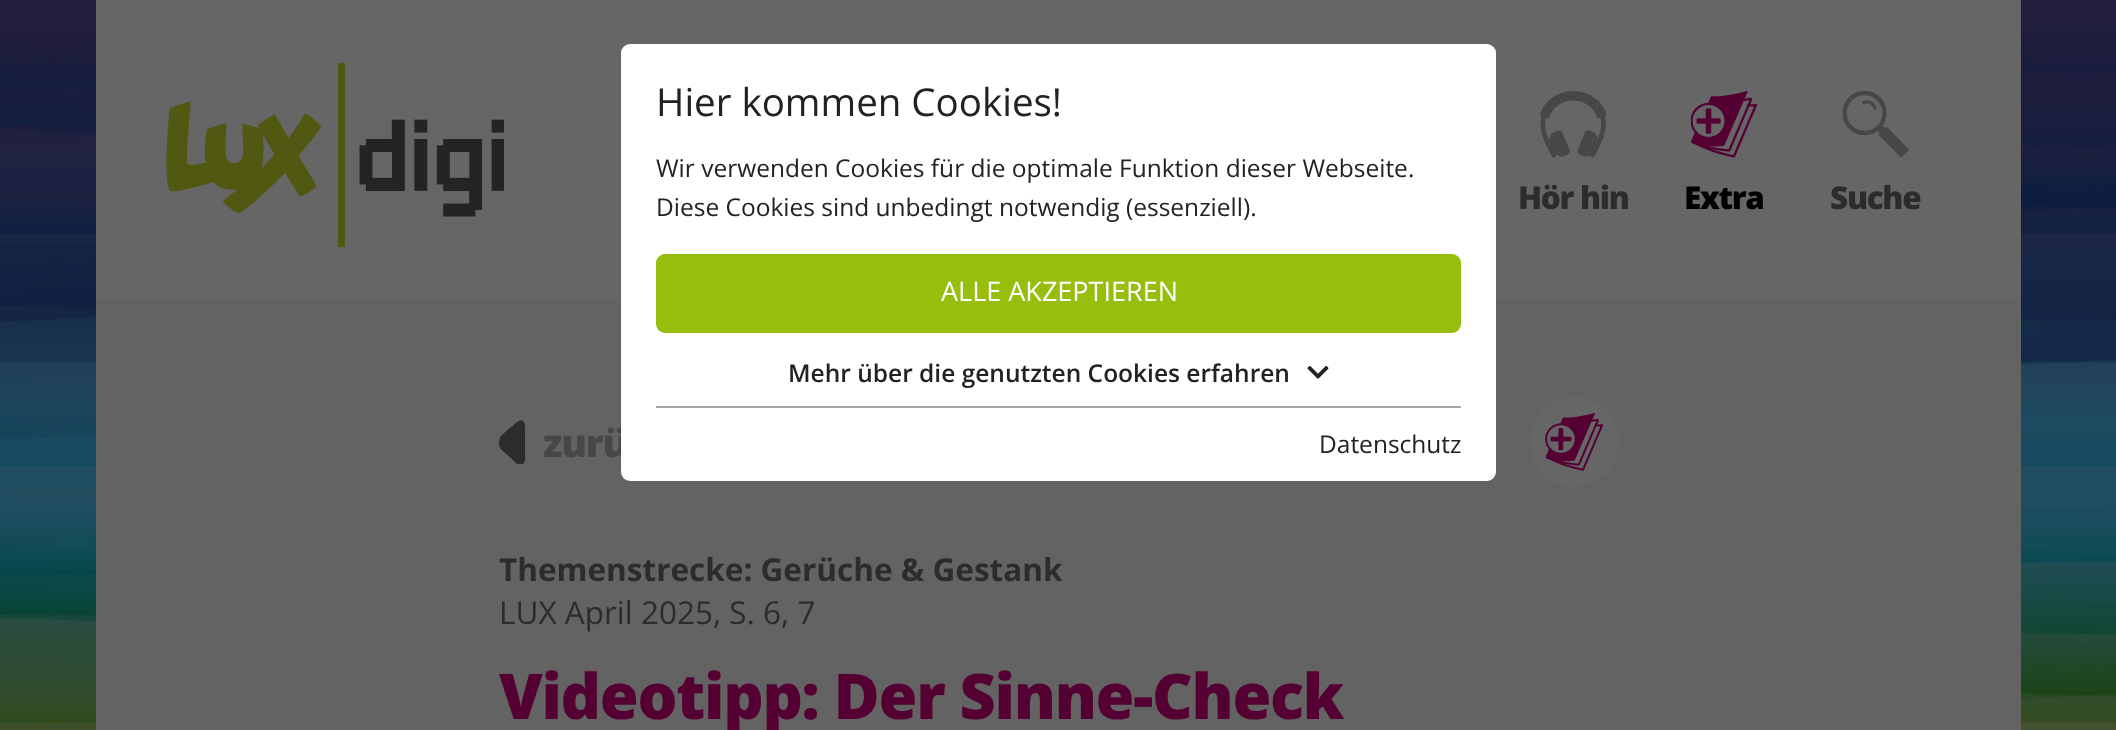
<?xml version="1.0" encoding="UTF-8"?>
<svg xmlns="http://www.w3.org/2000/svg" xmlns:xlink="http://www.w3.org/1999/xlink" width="2116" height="730">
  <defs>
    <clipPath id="clip1"><rect x="1843" y="91" width="66" height="67" /></clipPath>
    <clipPath id="clip2"><rect x="499" y="420" width="26" height="44" /></clipPath>
  </defs>
  <rect width="100%" height="100%" fill="#ffffff" />
  <image x="0" y="0" width="2116" height="730" xlink:href="image1.png" />
  <rect x="96" width="1925" height="298" fill="#666666" />
  <image x="166" y="63" width="338" height="184" xlink:href="image3.png" />
  <image x="1540" y="91" width="67" height="67" xlink:href="image4.png" />
  <image x="1691" y="91" width="66" height="67" xlink:href="image5.png" />
  <g clip-path="url(#clip1)">
    <circle cx="1864.5" cy="113" r="20" fill="none" stroke="#474747" stroke-width="4.3" />
  </g>
  <path d="M 1875 108 l -1 -2 c -2 -3.5 -6 -5 -10 -3.5" fill="none" stroke="#474747" stroke-width="3.5" stroke-linecap="round" />
  <path d="M 1875.5 128.5 l 22 22.5 l 5.5 -5.5 l -22.5 -22 z" fill="#474747" />
  <path d="M 1878.5 134 v 1 l 18.5 18.5 c 4 3.5 3 5 6 2.5 l 6 -6.5 l -22 -22.5 h -1 z" fill="#474747" />
  <rect x="96" y="298" width="1925" height="432" fill="#626362" />
  <g clip-path="url(#clip2)">
    <path d="M 503 451 c -3 -2 -4 -5 -4 -8 c 0 -4 1 -7 4 -9 l 13 -11 c 5 -5 9 -3 9 4 v 31 c 0 7 -4 9 -9 5 z" fill="#2d2c2c" />
  </g>
  <rect x="1530" y="397" width="89" height="90" rx="44.5" fill="#666666" />
  <image x="1545" y="413" width="58" height="58" xlink:href="image6.png" />
  <text x="1518" y="209" style="font-family: Open Sans; font-size: 31.5px; font-weight: 800; letter-spacing: -1.3px; fill: #2d2c2c">Hör hin</text>
  <text x="1684" y="209" style="font-family: Open Sans; font-size: 31.5px; font-weight: 800; letter-spacing: -1.3px; fill: #000000">Extra</text>
  <text x="1830" y="209" style="font-family: Open Sans; font-size: 31.5px; font-weight: 800; letter-spacing: -1.3px; fill: #2d2c2c">Suche</text>
  <text x="543" y="457" style="font-family: Open Sans; font-size: 38.5px; font-weight: 800; letter-spacing: -1.3px; fill: #474748">zurü</text>
  <rect x="621" y="44" width="875" height="437" rx="9" fill="#ffffff" />
  <image x="1307" y="366" width="22" height="13" xlink:href="image2.png" />
  <text x="788" y="382" style="font-family: Open Sans; font-size: 24.5px; font-weight: 600; fill: #222222">Mehr über die genutzten Cookies erfahren</text>
  <text x="1319" y="453" style="font-family: Open Sans; font-size: 24.5px; fill: #222222">Datenschutz</text>
  <rect x="656" y="254" width="805" height="79" rx="9" fill="#97be0c" />
  <text x="941" y="301" style="font-family: Open Sans; font-size: 27px; fill: #ffffff">ALLE AKZEPTIEREN</text>
  <text x="656" y="216" style="font-family: Open Sans; font-size: 24.5px; fill: #222222">Diese Cookies sind unbedingt notwendig (essenziell).</text>
  <text x="656" y="177" style="font-family: Open Sans; font-size: 24.5px; fill: #222222">Wir verwenden Cookies für die optimale Funktion dieser Webseite.</text>
  <text x="656" y="116" style="font-family: Open Sans; font-size: 38.5px; fill: #222222">Hier kommen Cookies!</text>
  <rect x="656" y="406" width="805" height="2" fill="#a5a5a5" />
  <text x="499" y="581" style="font-family: Open Sans; font-size: 31.5px; font-weight: bold; fill: #2d2c2c">Themenstrecke: Gerüche &amp; Gestank</text>
  <text x="499" y="624" style="font-family: Open Sans; font-size: 31.5px; fill: #2d2c2c">LUX April 2025, S. 6, 7</text>
  <text x="499" y="719" style="font-family: Open Sans; font-size: 63px; font-weight: 800; letter-spacing: -1.3px; fill: #540032">Videotipp: Der Sinne-Check</text>
</svg>
